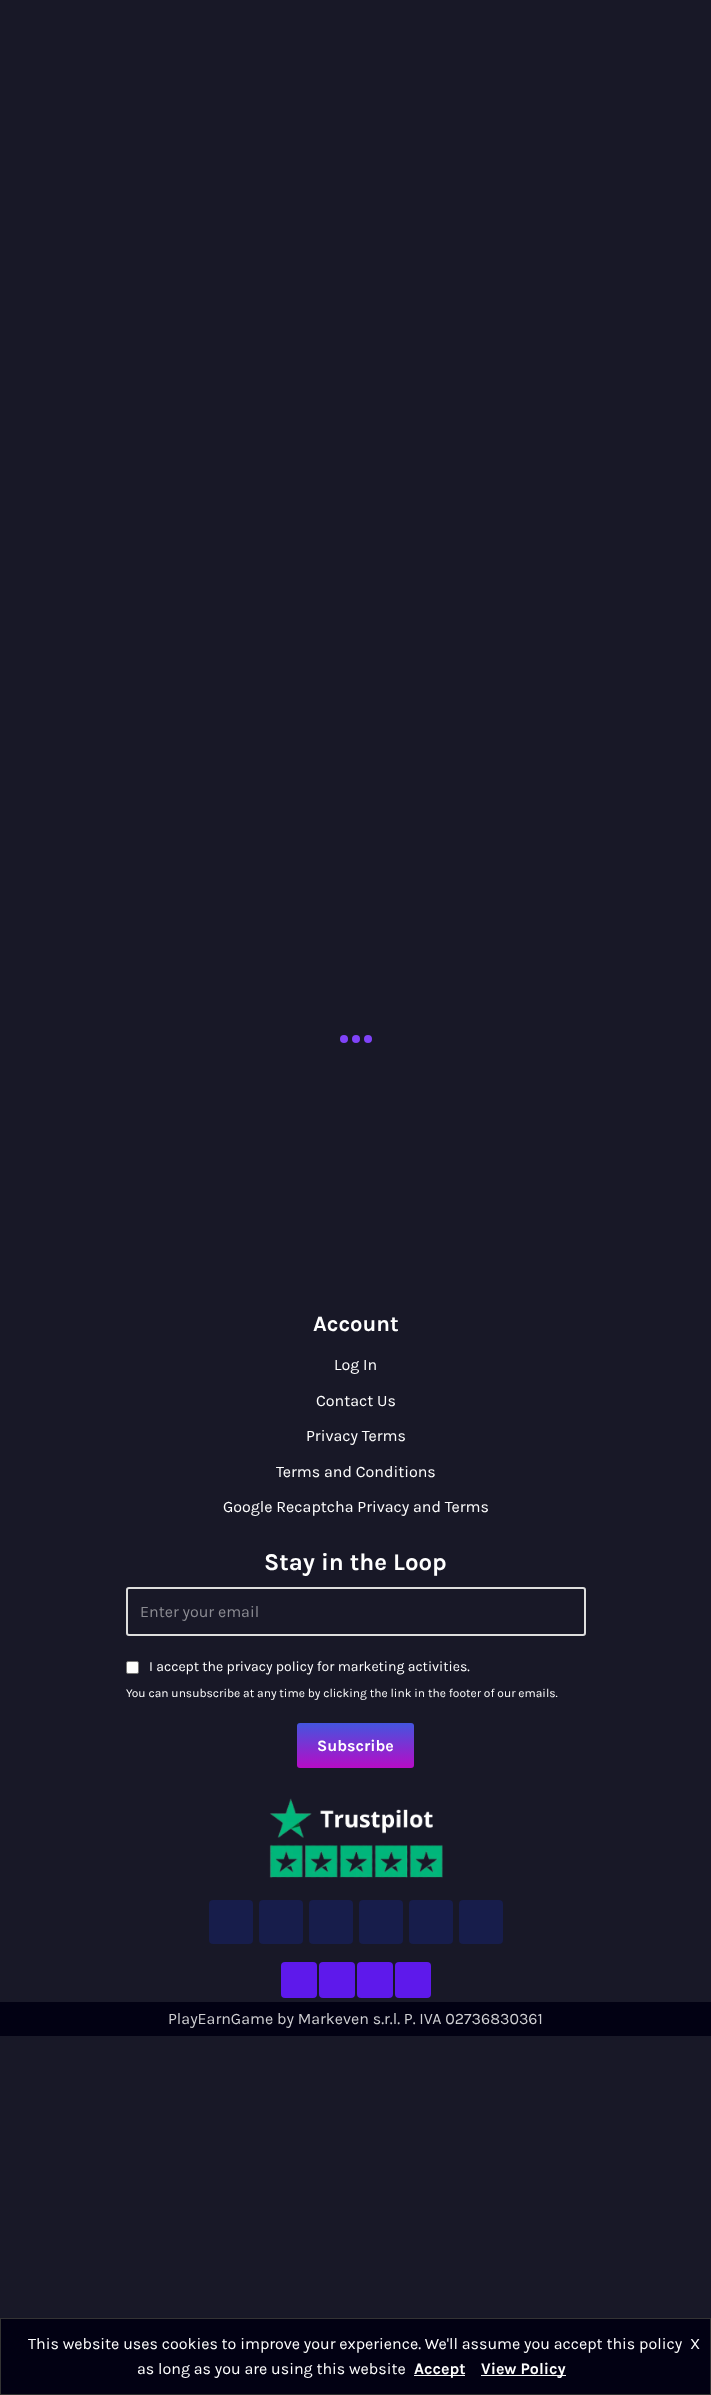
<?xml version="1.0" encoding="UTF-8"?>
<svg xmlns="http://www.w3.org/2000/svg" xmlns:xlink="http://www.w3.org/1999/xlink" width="711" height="2395">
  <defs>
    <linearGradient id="g1" gradientUnits="userSpaceOnUse" x1="356" y1="1723" x2="356" y2="1768"><stop offset="0" stop-color="#4355df" /><stop offset="1" stop-color="#b70cc6" /></linearGradient>
  </defs>
  <rect width="100%" height="100%" fill="#181827" />
  <circle cx="344" cy="1039" r="4" fill="#8043f9" />
  <circle cx="356" cy="1039" r="4" fill="#8043f9" />
  <circle cx="368" cy="1039" r="4" fill="#8043f9" />
  <rect x="127" y="1588" width="458" height="47" rx="2" fill="none" stroke="#dddddd" stroke-width="2" />
  <rect x="126.5" y="1661.5" width="12" height="12" rx="1.5" fill="#ffffff" stroke="#767676" />
  <rect x="297" y="1723" width="117" height="45" rx="3" fill="url(#g1)" />
  <image x="269" y="1798" width="174" height="80" xlink:href="image1.png" />
  <rect x="209" y="1900" width="44" height="44" rx="4" fill="#171d4b" />
  <rect x="259" y="1900" width="44" height="44" rx="4" fill="#171d4b" />
  <rect x="309" y="1900" width="44" height="44" rx="4" fill="#171d4b" />
  <rect x="359" y="1900" width="44" height="44" rx="4" fill="#171d4b" />
  <rect x="409" y="1900" width="44" height="44" rx="4" fill="#171d4b" />
  <rect x="459" y="1900" width="44" height="44" rx="4" fill="#171d4b" />
  <rect x="281" y="1962" width="36" height="36" rx="4" fill="#5e19eb" />
  <rect x="319" y="1962" width="36" height="36" rx="4" fill="#5e19eb" />
  <rect x="357" y="1962" width="36" height="36" rx="4" fill="#5e19eb" />
  <rect x="395" y="1962" width="36" height="36" rx="4" fill="#5e19eb" />
  <rect y="2002" width="711" height="34" fill="#020113" />
  <rect x="0.5" y="2318.5" width="710" height="76" fill="#020113" stroke="#333333" />
  <rect x="414" y="2375" width="51" height="1" fill="#fafafa" />
  <rect x="481" y="2375" width="85" height="1" fill="#fafafa" />
  <text x="313" y="1331" style="font-family: Karla; font-size: 22px; font-weight: bold; fill: #ffffff">Account</text>
  <text x="334" y="1370" style="font-family: Karla; font-size: 16px; fill: #ffffff">Log In</text>
  <text x="316" y="1406" style="font-family: Karla; font-size: 16px; fill: #ffffff">Contact Us</text>
  <text x="306" y="1441" style="font-family: Karla; font-size: 16px; fill: #ffffff">Privacy Terms</text>
  <text x="276" y="1477" style="font-family: Karla; font-size: 16px; fill: #ffffff">Terms and Conditions</text>
  <text x="223" y="1512" style="font-family: Karla; font-size: 16px; fill: #ffffff">Google Recaptcha Privacy and Terms</text>
  <text x="264" y="1570" style="font-family: Karla; font-size: 24px; font-weight: bold; fill: #ffffff">Stay in the Loop</text>
  <text x="140" y="1617" style="font-family: Karla; font-size: 16px; fill: #8c8c93">Enter your email</text>
  <text x="149" y="1671" style="font-family: Karla; font-size: 14px; fill: #ffffff">I accept the privacy policy for marketing activities.</text>
  <text x="126" y="1697" style="font-family: Karla; font-size: 12px; fill: #ffffff">You can unsubscribe at any time by clicking the link in the footer of our emails.</text>
  <text x="317" y="1751" style="font-family: Karla; font-size: 16px; font-weight: bold; fill: #ffffff">Subscribe</text>
  <text x="168" y="2024" style="font-family: Karla; font-size: 16px; fill: #cfcfd2">PlayEarnGame by Markeven s.r.l. P. IVA 02736830361</text>
  <text x="28" y="2349" style="font-family: Karla; font-size: 16px; fill: #ffffff">This website uses cookies to improve your experience. We'll assume you accept this policy</text>
  <text x="690" y="2349" style="font-family: Karla; font-size: 16px; fill: #ffffff">X</text>
  <text x="137" y="2374" style="font-family: Karla; font-size: 16px; fill: #ffffff">as long as you are using this website</text>
  <text x="414" y="2374" style="font-family: Karla; font-size: 16px; font-weight: bold; fill: #ffffff">Accept</text>
  <text x="481" y="2374" style="font-family: Karla; font-size: 16px; font-weight: bold; fill: #ffffff">View Policy</text>
</svg>
